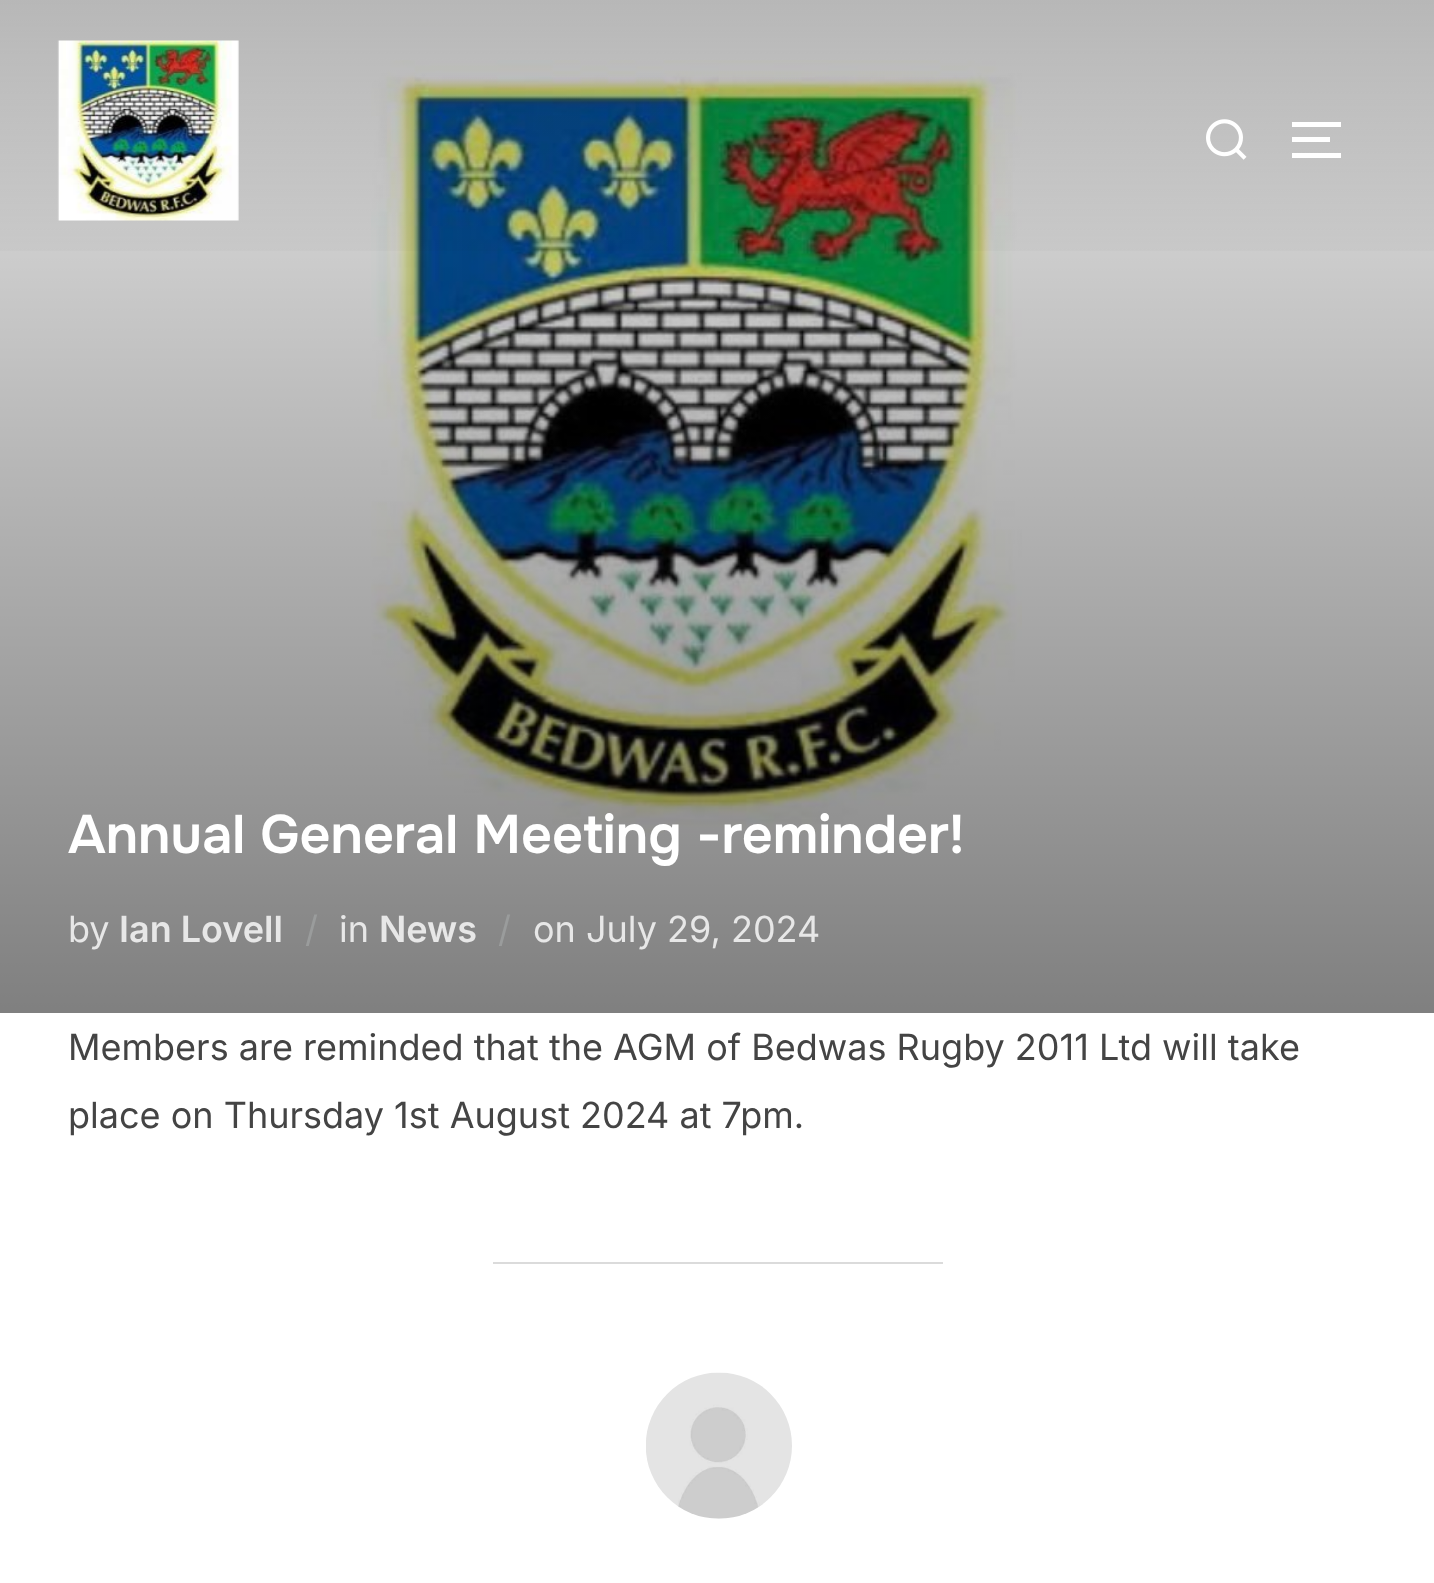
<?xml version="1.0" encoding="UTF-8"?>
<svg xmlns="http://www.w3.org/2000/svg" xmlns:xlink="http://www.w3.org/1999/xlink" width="1434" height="1583">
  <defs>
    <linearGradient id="g1" gradientUnits="userSpaceOnUse" x1="718" y1="0" x2="718" y2="1013"><stop offset="0" stop-color="#000000" stop-opacity="0.1" /><stop offset="1" stop-color="#000000" stop-opacity="0.5" /></linearGradient>
    <linearGradient id="g2" gradientUnits="userSpaceOnUse" x1="718" y1="0" x2="718" y2="281"><stop offset="0.01" stop-color="#000000" stop-opacity="0.2" /><stop offset="1" stop-color="#000000" stop-opacity="0" /></linearGradient>
  </defs>
  <rect width="100%" height="100%" fill="#ffffff" />
  <image x="371" y="60" width="651" height="773" xlink:href="image3.png" />
  <rect width="1434" height="1013" fill="url(#g1)" />
  <rect width="1434" height="251" fill="url(#g2)" />
  <image x="57" y="40" width="182" height="181" xlink:href="image1.png" />
  <image x="1206" y="119" width="41" height="41" xlink:href="image2.png" />
  <rect x="1292" y="122" width="49" height="5" fill="#ffffff" />
  <rect x="1292" y="137" width="38" height="5" fill="#ffffff" />
  <rect x="1292" y="153" width="49" height="5" fill="#ffffff" />
  <rect x="493" y="1262" width="450" height="2" fill="#dbdbdb" />
  <image x="646" y="1372" width="146" height="147" xlink:href="image4.png" />
  <text x="68" y="853" style="font-family: Onest; font-size: 54px; font-weight: 600; fill: #ffffff">Annual General Meeting -reminder!</text>
  <text x="68" y="942" style="font-family: Inter; font-size: 36px; fill: #e7e7e7">by</text>
  <text x="119" y="942" style="font-family: Inter; font-size: 36px; font-weight: 600; fill: #e7e7e7">Ian Lovell</text>
  <text x="305" y="942" style="font-family: Inter; font-size: 36px; fill: #9a9c9c">/</text>
  <text x="339" y="942" style="font-family: Inter; font-size: 36px; fill: #e7e7e7">in</text>
  <text x="379" y="942" style="font-family: Inter; font-size: 36px; font-weight: 600; fill: #e7e7e7">News</text>
  <text x="498" y="942" style="font-family: Inter; font-size: 36px; fill: #9a9c9c">/</text>
  <text x="533" y="942" style="font-family: Inter; font-size: 36px; fill: #e7e7e7">on July 29, 2024</text>
  <text x="68" y="1060" style="font-family: Inter; font-size: 36px; fill: #444444">Members are reminded that the AGM of Bedwas Rugby 2011 Ltd will take</text>
  <text x="68" y="1128" style="font-family: Inter; font-size: 36px; fill: #444444">place on Thursday 1st August 2024 at 7pm.</text>
</svg>
